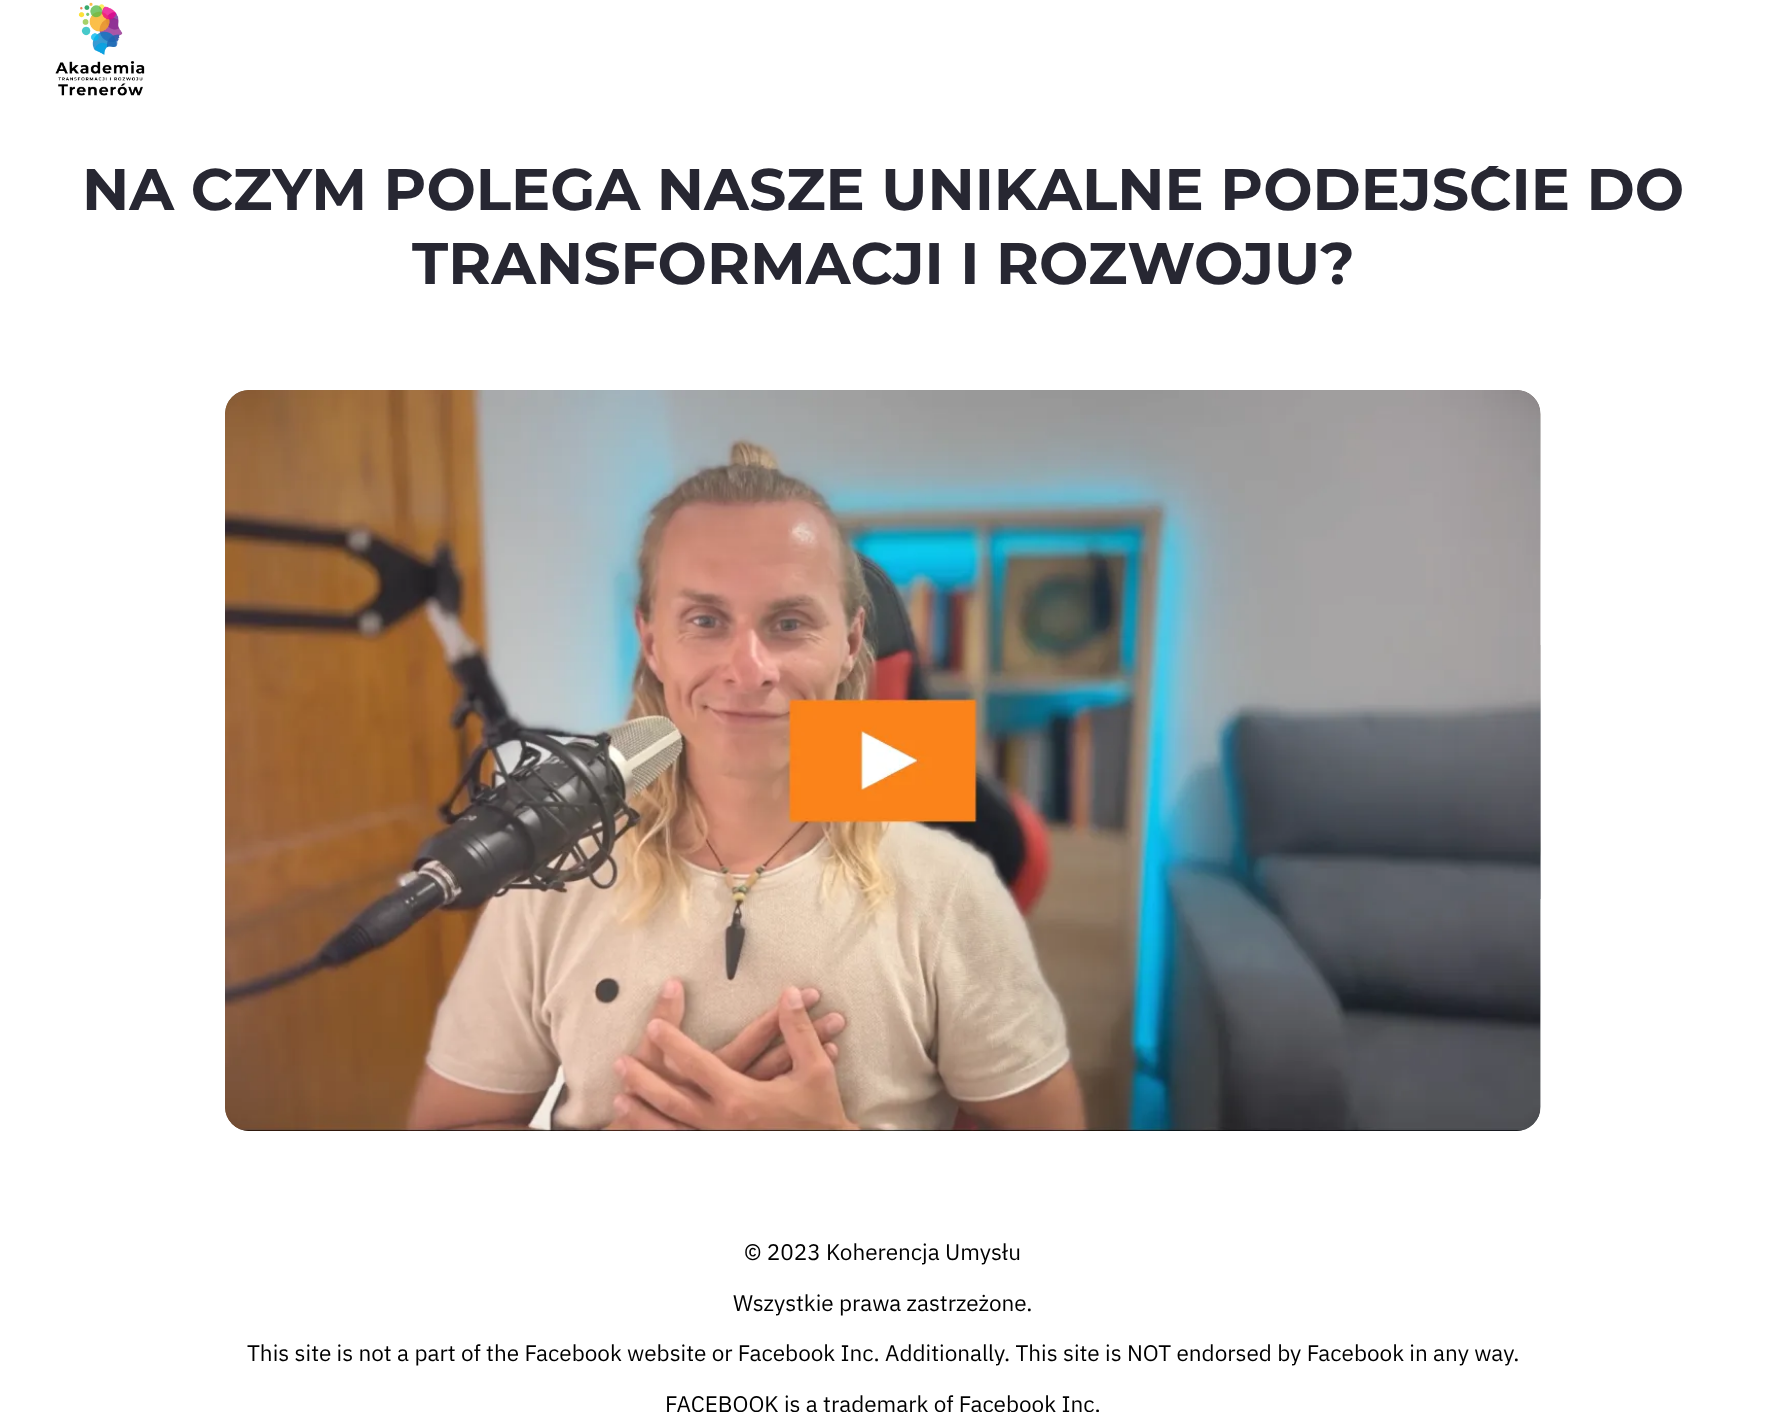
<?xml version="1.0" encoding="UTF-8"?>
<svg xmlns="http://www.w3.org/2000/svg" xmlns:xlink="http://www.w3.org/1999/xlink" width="1765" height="1412">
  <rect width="100%" height="100%" fill="#ffffff" />
  <image x="55" y="2" width="90" height="94" xlink:href="image1.png" />
  <image x="225" y="390" width="1316" height="741" xlink:href="image2.png" />
  <image x="225" y="390" width="1316" height="741" xlink:href="image3.png" />
  <text x="82" y="210" style="font-family: Montserrat; font-size: 58.5px; font-weight: 100; fill: #272732">NA CZYM POLEGA NASZE UNIKALNE PODEJŚCIE DO</text>
  <text x="412" y="284" style="font-family: Montserrat; font-size: 58.5px; font-weight: 100; fill: #272732">TRANSFORMACJI I ROZWOJU?</text>
  <text x="744" y="1260" style="font-family: IBM Plex Sans; font-size: 22.5px; fill: #000000">© 2023 Koherencja Umysłu</text>
  <text x="733" y="1311" style="font-family: IBM Plex Sans; font-size: 22.5px; fill: #000000">Wszystkie prawa zastrzeżone.</text>
  <text x="247" y="1361" style="font-family: IBM Plex Sans; font-size: 22.5px; fill: #000000">This site is not a part of the Facebook website or Facebook Inc. Additionally. This site is NOT endorsed by Facebook in any way.</text>
  <text x="665" y="1412" style="font-family: IBM Plex Sans; font-size: 22.5px; fill: #000000">FACEBOOK is a trademark of Facebook Inc.</text>
</svg>
